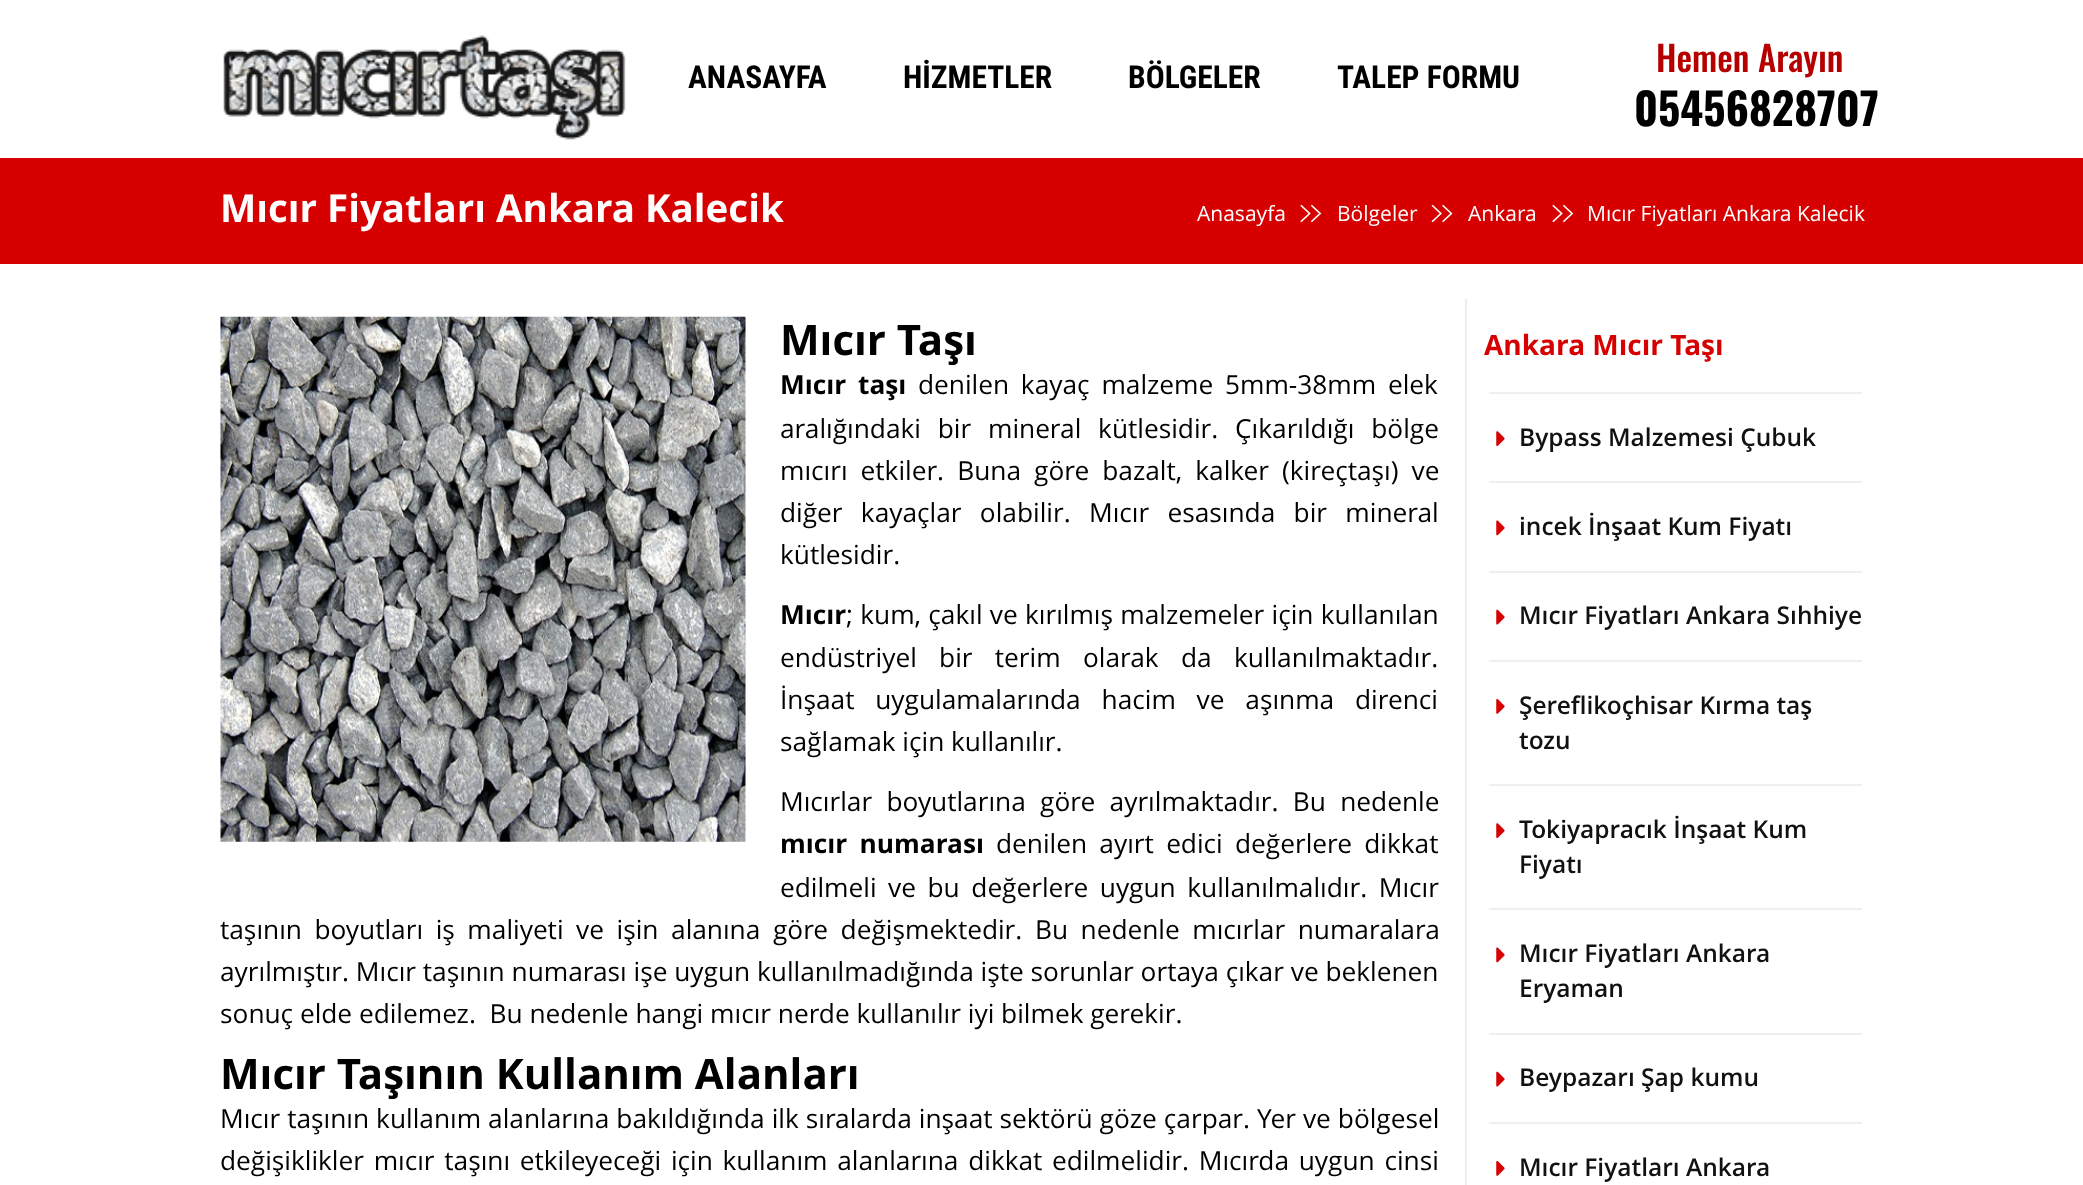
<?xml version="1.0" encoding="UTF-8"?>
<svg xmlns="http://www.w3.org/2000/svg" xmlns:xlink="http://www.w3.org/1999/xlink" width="2083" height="1185">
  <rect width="100%" height="100%" fill="#ffffff" />
  <image x="223" y="35" width="403" height="105" xlink:href="image1.png" />
  <rect y="158" width="2083" height="106" fill="#d60000" />
  <image x="1300" y="204" width="11" height="19" xlink:href="image2.png" />
  <image x="1310" y="204" width="12" height="19" xlink:href="image3.png" />
  <image x="1431" y="204" width="11" height="19" xlink:href="image4.png" />
  <image x="1442" y="204" width="11" height="19" xlink:href="image5.png" />
  <image x="1552" y="204" width="11" height="19" xlink:href="image2.png" />
  <image x="1562" y="204" width="12" height="19" xlink:href="image3.png" />
  <rect x="1465" y="299" width="2" height="886" fill="#efefef" />
  <image x="220" y="316" width="526" height="526" xlink:href="image6.png" />
  <rect x="1489" y="392" width="373" height="2" fill="#efefef" />
  <rect x="1489" y="481" width="373" height="2" fill="#efefef" />
  <image x="1496" y="431" width="9" height="16" xlink:href="image7.png" />
  <rect x="1489" y="571" width="373" height="2" fill="#efefef" />
  <image x="1496" y="520" width="9" height="16" xlink:href="image8.png" />
  <rect x="1489" y="660" width="373" height="2" fill="#efefef" />
  <image x="1496" y="609" width="9" height="16" xlink:href="image9.png" />
  <rect x="1489" y="784" width="373" height="2" fill="#efefef" />
  <image x="1496" y="698" width="9" height="16" xlink:href="image10.png" />
  <rect x="1489" y="908" width="373" height="2" fill="#efefef" />
  <image x="1496" y="823" width="9" height="16" xlink:href="image7.png" />
  <rect x="1489" y="1033" width="373" height="2" fill="#efefef" />
  <image x="1496" y="947" width="9" height="16" xlink:href="image8.png" />
  <rect x="1489" y="1122" width="373" height="2" fill="#efefef" />
  <image x="1496" y="1071" width="9" height="16" xlink:href="image9.png" />
  <image x="1496" y="1160" width="9" height="16" xlink:href="image10.png" />
  <text x="688" y="88" style="font-family: Roboto Condensed; font-size: 31.5px; font-weight: bold; fill: #000000">ANASAYFA</text>
  <text x="903" y="88" style="font-family: Roboto Condensed; font-size: 31.5px; font-weight: bold; fill: #000000">HİZMETLER</text>
  <text x="1128" y="88" style="font-family: Roboto Condensed; font-size: 31.5px; font-weight: bold; fill: #000000">BÖLGELER</text>
  <text x="1337" y="88" style="font-family: Roboto Condensed; font-size: 31.5px; font-weight: bold; fill: #000000">TALEP FORMU</text>
  <text x="1656" y="72" style="font-family: Oswald; font-size: 35px; font-weight: 500; fill: #b60000">Hemen Arayın</text>
  <text x="1634" y="126" style="font-family: Oswald; font-size: 43.75px; font-weight: bold; fill: #000000">05456828707</text>
  <text x="220" y="222" style="font-family: Open Sans; font-size: 38.5px; font-weight: bold; fill: #ffffff">Mıcır Fiyatları Ankara Kalecik</text>
  <text x="1197" y="221" style="font-family: Open Sans; font-size: 21px; fill: #ffffff">Anasayfa</text>
  <text x="1337" y="221" style="font-family: Open Sans; font-size: 21px; fill: #ffffff">Bölgeler</text>
  <text x="1468" y="221" style="font-family: Open Sans; font-size: 21px; fill: #ffffff">Ankara</text>
  <text x="1587" y="221" style="font-family: Open Sans; font-size: 21px; fill: #ffffff">Mıcır Fiyatları Ankara Kalecik</text>
  <text x="780" y="355" style="font-family: Open Sans; font-size: 42px; font-weight: bold; fill: #000000">Mıcır Taşı</text>
  <text x="780" y="394" word-spacing="5" style="font-family: Open Sans; font-size: 26.25px; font-weight: bold; fill: #000000">Mıcır taşı</text>
  <text x="918" y="394" word-spacing="5" style="font-family: Open Sans; font-size: 26.25px; fill: #000000">denilen kayaç malzeme 5mm-38mm elek</text>
  <text x="780" y="438" word-spacing="10" style="font-family: Open Sans; font-size: 26.25px; fill: #000000">aralığındaki bir mineral kütlesidir. Çıkarıldığı bölge</text>
  <text x="780" y="480" word-spacing="6.25" style="font-family: Open Sans; font-size: 26.25px; fill: #000000">mıcırı etkiler. Buna göre bazalt, kalker (kireçtaşı) ve</text>
  <text x="780" y="522" word-spacing="11.5" style="font-family: Open Sans; font-size: 26.25px; fill: #000000">diğer kayaçlar olabilir. Mıcır esasında bir mineral</text>
  <text x="780" y="564" style="font-family: Open Sans; font-size: 26.25px; fill: #000000">kütlesidir.</text>
  <text x="780" y="624" style="font-family: Open Sans; font-size: 26.25px; font-weight: bold; fill: #000000">Mıcır</text>
  <text x="846" y="624" word-spacing="0.5" style="font-family: Open Sans; font-size: 26.25px; fill: #000000">; kum, çakıl ve kırılmış malzemeler için kullanılan</text>
  <text x="780" y="667" word-spacing="15.5" style="font-family: Open Sans; font-size: 26.25px; fill: #000000">endüstriyel bir terim olarak da kullanılmaktadır.</text>
  <text x="780" y="709" word-spacing="14" style="font-family: Open Sans; font-size: 26.25px; fill: #000000">İnşaat uygulamalarında hacim ve aşınma direnci</text>
  <text x="780" y="751" style="font-family: Open Sans; font-size: 26.25px; fill: #000000">sağlamak için kullanılır.</text>
  <text x="780" y="811" word-spacing="7.5" style="font-family: Open Sans; font-size: 26.25px; fill: #000000">Mıcırlar boyutlarına göre ayrılmaktadır. Bu nedenle</text>
  <text x="780" y="853" word-spacing="5.5" style="font-family: Open Sans; font-size: 26.25px; font-weight: bold; fill: #000000">mıcır numarası</text>
  <text x="996" y="853" word-spacing="5.5" style="font-family: Open Sans; font-size: 26.25px; fill: #000000">denilen ayırt edici değerlere dikkat</text>
  <text x="780" y="897" word-spacing="4.75" style="font-family: Open Sans; font-size: 26.25px; fill: #000000">edilmeli ve bu değerlere uygun kullanılmalıdır. Mıcır</text>
  <text x="220" y="939" word-spacing="5.75" style="font-family: Open Sans; font-size: 26.25px; fill: #000000">taşının boyutları iş maliyeti ve işin alanına göre değişmektedir. Bu nedenle mıcırlar numaralara</text>
  <text x="220" y="981" style="font-family: Open Sans; font-size: 26.25px; fill: #000000">ayrılmıştır. Mıcır taşının numarası işe uygun kullanılmadığında işte sorunlar ortaya çıkar ve beklenen</text>
  <text x="220" y="1023" style="font-family: Open Sans; font-size: 26.25px; fill: #000000" xml:space="preserve">sonuç elde edilemez.  Bu nedenle hangi mıcır nerde kullanılır iyi bilmek gerekir.</text>
  <text x="220" y="1089" style="font-family: Open Sans; font-size: 42px; font-weight: bold; fill: #000000">Mıcır Taşının Kullanım Alanları</text>
  <text x="220" y="1128" word-spacing="0.2" style="font-family: Open Sans; font-size: 26.25px; fill: #000000">Mıcır taşının kullanım alanlarına bakıldığında ilk sıralarda inşaat sektörü göze çarpar. Yer ve bölgesel</text>
  <text x="220" y="1170" word-spacing="2.9" style="font-family: Open Sans; font-size: 26.25px; fill: #000000">değişiklikler mıcır taşını etkileyeceği için kullanım alanlarına dikkat edilmelidir. Mıcırda uygun cinsi</text>
  <text x="1484" y="355" style="font-family: Open Sans; font-size: 28px; font-weight: bold; fill: #d60000">Ankara Mıcır Taşı</text>
  <text x="1519" y="446" style="font-family: Open Sans; font-size: 24.5px; font-weight: 600; fill: #111111">Bypass Malzemesi Çubuk</text>
  <text x="1519" y="535" style="font-family: Open Sans; font-size: 24.5px; font-weight: 600; fill: #111111">incek İnşaat Kum Fiyatı</text>
  <text x="1519" y="624" style="font-family: Open Sans; font-size: 24.5px; font-weight: 600; fill: #111111">Mıcır Fiyatları Ankara Sıhhiye</text>
  <text x="1519" y="714" style="font-family: Open Sans; font-size: 24.5px; font-weight: 600; fill: #111111">Şereflikoçhisar Kırma taş</text>
  <text x="1519" y="749" style="font-family: Open Sans; font-size: 24.5px; font-weight: 600; fill: #111111">tozu</text>
  <text x="1519" y="838" style="font-family: Open Sans; font-size: 24.5px; font-weight: 600; fill: #111111">Tokiyapracık İnşaat Kum</text>
  <text x="1519" y="873" style="font-family: Open Sans; font-size: 24.5px; font-weight: 600; fill: #111111">Fiyatı</text>
  <text x="1519" y="962" style="font-family: Open Sans; font-size: 24.5px; font-weight: 600; fill: #111111">Mıcır Fiyatları Ankara</text>
  <text x="1519" y="997" style="font-family: Open Sans; font-size: 24.5px; font-weight: 600; fill: #111111">Eryaman</text>
  <text x="1519" y="1086" style="font-family: Open Sans; font-size: 24.5px; font-weight: 600; fill: #111111">Beypazarı Şap kumu</text>
  <text x="1519" y="1176" style="font-family: Open Sans; font-size: 24.5px; font-weight: 600; fill: #111111">Mıcır Fiyatları Ankara</text>
</svg>
